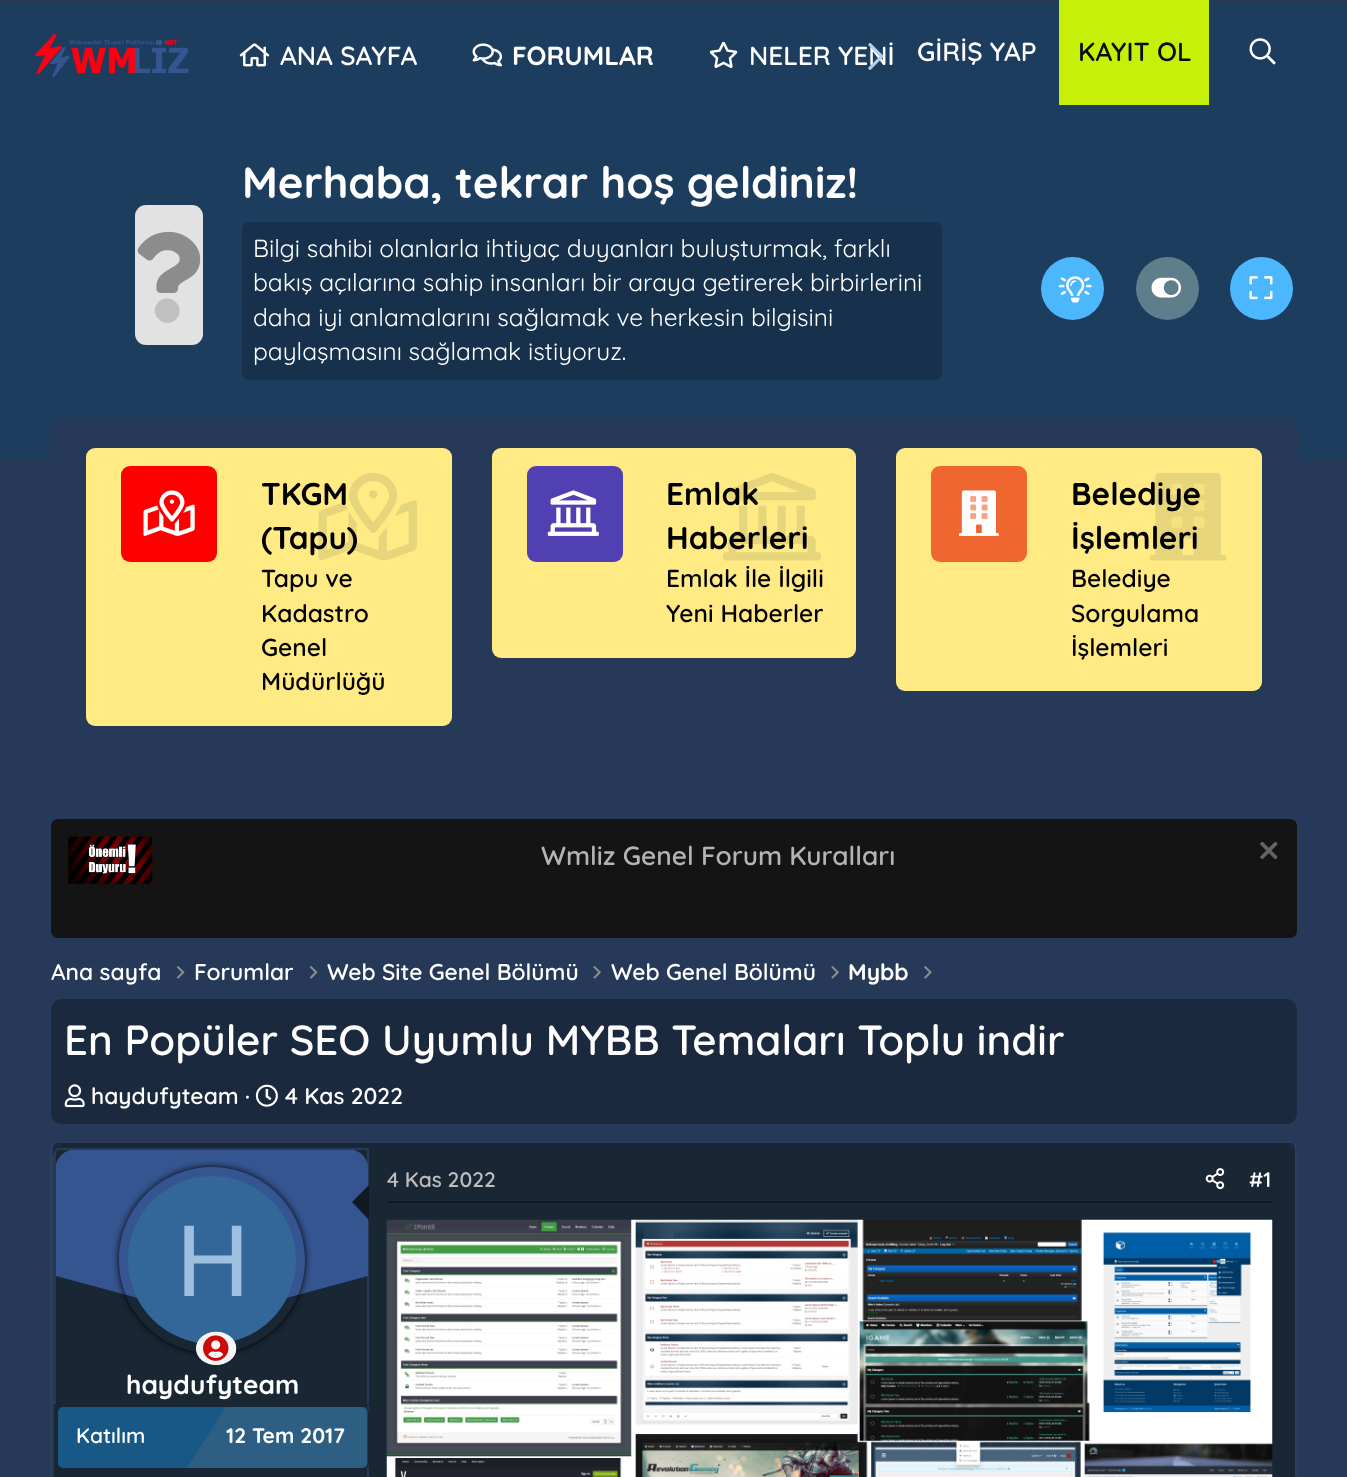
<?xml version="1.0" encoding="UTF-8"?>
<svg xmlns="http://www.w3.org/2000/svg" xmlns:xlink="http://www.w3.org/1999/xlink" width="1347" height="1477">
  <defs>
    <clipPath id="clip1"><path d="M 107 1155 h 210 v 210 h -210 z m 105 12 c 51.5 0 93 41.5 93 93 c 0 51.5 -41.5 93 -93 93 c -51.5 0 -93 -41.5 -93 -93 c 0 -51.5 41.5 -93 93 -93 z" clip-rule="evenodd" /></clipPath>
  </defs>
  <rect width="100%" height="100%" fill="#263958" />
  <rect y="4" width="1347" height="456" fill="#1d3d5f" />
  <image x="34" y="33" width="155" height="45" xlink:href="image1.png" />
  <image x="239" y="43" width="31" height="24" xlink:href="image2.png" />
  <image x="472" y="43" width="31" height="24" xlink:href="image3.png" />
  <image x="709" y="41" width="29" height="27" xlink:href="image4.png" />
  <rect x="1059" width="150" height="105" fill="#c7f008" />
  <image x="1249" y="38" width="27" height="27" xlink:href="image6.png" />
  <rect x="135" y="205" width="68" height="140" rx="11" fill="#e2e2e2" />
  <image x="137" y="231" width="64" height="62" xlink:href="image7.png" />
  <path d="M 158.5 302 c 11.5 -11.5 29 6 17.5 17.5 c -11.5 11 -29 -6.5 -17.5 -17.5 z" fill="#c0c0c0" />
  <rect x="242" y="222" width="700" height="158" rx="7" fill="#17314c" />
  <circle cx="1072.5" cy="288.5" r="31.5" fill="#4db7fe" />
  <image x="1058" y="276" width="34" height="27" xlink:href="image8.png" />
  <circle cx="1167.5" cy="288.5" r="31.5" fill="#607d8b" />
  <image x="1151" y="277" width="30" height="21" xlink:href="image9.png" />
  <circle cx="1261.5" cy="288.5" r="31.5" fill="#4db7fe" />
  <image x="1249" y="276" width="24" height="24" xlink:href="image10.png" />
  <path d="M 67 417 h 1214 c 10 0 18 8 18 18 v 323 h -1250 v -323 c 0 -10 8 -18 18 -18 z" fill="#263958" />
  <rect x="86" y="448" width="366" height="278" rx="9" fill="#ffea84" />
  <rect x="121" y="466" width="96" height="96" rx="9" fill="#ff0000" />
  <image x="143" y="490" width="52" height="46" xlink:href="image11.png" />
  <image x="318" y="473" width="99" height="88" xlink:href="image12.png" />
  <rect x="492" y="448" width="364" height="210" rx="9" fill="#ffea84" />
  <rect x="527" y="466" width="96" height="96" rx="9" fill="#5140b1" />
  <image x="547" y="490" width="52" height="46" xlink:href="image13.png" />
  <image x="722" y="473" width="99" height="88" xlink:href="image14.png" />
  <rect x="896" y="448" width="366" height="243" rx="9" fill="#ffea84" />
  <rect x="931" y="466" width="96" height="96" rx="9" fill="#ef6631" />
  <image x="959" y="490" width="40" height="46" xlink:href="image15.png" />
  <image x="970" y="496" width="18" height="23" xlink:href="image16.png" />
  <image x="1149" y="473" width="78" height="88" xlink:href="image17.png" />
  <image x="1172" y="484" width="32" height="44" xlink:href="image18.png" />
  <rect x="51" y="819" width="1246" height="119" rx="7" fill="#141414" />
  <image x="68" y="836" width="85" height="48" xlink:href="image19.png" />
  <image x="1260" y="841" width="18" height="19" xlink:href="image20.png" />
  <image x="176" y="966" width="9" height="13" xlink:href="image21.png" />
  <image x="309" y="966" width="9" height="13" xlink:href="image21.png" />
  <image x="593" y="966" width="8" height="13" xlink:href="image22.png" />
  <image x="831" y="966" width="8" height="13" xlink:href="image22.png" />
  <image x="924" y="966" width="8" height="13" xlink:href="image23.png" />
  <rect x="51" y="999" width="1246" height="125" rx="11" fill="#1b293f" />
  <image x="64" y="1084" width="21" height="24" xlink:href="image24.png" />
  <image x="255" y="1084" width="23" height="23" xlink:href="image25.png" />
  <rect x="51" y="1141" width="1246" height="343" rx="7" fill="#1b293f" />
  <path d="M 53.5 1143.5 c 1 -1 2.5 -1.5 4.5 -1.5 h 1232 c 1.5 0 3 0.5 4 1.5" fill="none" stroke="#2b3a5d" stroke-width="1.8" />
  <path d="M 1294 1143.5 c 1 1.5 2 3 2 4.5 v 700 c 0 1.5 -1 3 -2 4.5" fill="none" stroke="#304067" stroke-width="1.8" />
  <path d="M 53.5 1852.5 c -1 -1.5 -2 -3 -2 -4.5 v -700 c 0 -1.5 1 -3 2 -4.5" fill="none" stroke="#304067" stroke-width="1.8" />
  <path d="M 70 1143 c -6 0 -12 3 -15 8 l 1 3 c 3 -4 8 -6 14 -6 h 1208 c 3 0 6 1 8 3 l 4 -3 c -3 -3 -8 -5 -12 -5 z" fill="#192734" />
  <path d="M 1290 1148 c 3 3 5 7 5 12 v 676 c 0 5 -2 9 -5 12 l -4 -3 c 3 -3 4 -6 4 -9 v -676 c 0 -3 -1 -6 -4 -9 z" fill="#192734" />
  <path d="M 52 1156 l 3 -5 l 1 3 c -1 2 -2 4 -2 6 v 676 c 0 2 1 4 2 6 l -1 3 l -3 -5 z" fill="#283b4d" />
  <path d="M 369 1148 h 916 c 3 0 5 2 5 5 v 324 c 0 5 -4 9 -9 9 h -912 z" fill="#192734" />
  <rect x="387" y="1201" width="885" height="2" fill="#111a23" />
  <image x="1205" y="1168" width="20" height="22" xlink:href="image26.png" />
  <image x="386" y="1219" width="887" height="258" xlink:href="image27.png" />
  <path d="M 59 1149 h 309 v 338 h -305 c -4.5 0 -8 -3.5 -8 -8 v -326 c 0 -2 2 -4 4 -4 z" fill="#192734" stroke="#263958" stroke-width="2" />
  <path d="M 56 1164 c 2 -7 7 -12 14 -14 h 284 c 7 2 13 8 14 16 v 110 l -156 42 l -156 -42 z" fill="#355591" />
  <path d="M 369 1185 v 35 l -17 -18 z" fill="#111a23" />
  <g clip-path="url(#clip1)">
    <rect x="119" y="1167" width="186" height="186" rx="93" fill="#000000" filter="blur(3.5px)" />
  </g>
  <circle cx="212" cy="1260" r="84" fill="#336699" />
  <ellipse cx="216" cy="1348.5" rx="20" ry="16.5" fill="#f5f5f5" />
  <path d="M 216 1333.5 c 10.5 0 18.5 6.5 18.5 15 c 0 8 -8 14.5 -18.5 14.5 c -10 0 -18 -6.5 -18 -14.5 c 0 -8.5 8 -15 18 -15 z" fill="none" stroke="#f5f5f5" stroke-width="3.5" />
  <image x="203" y="1335" width="26" height="26" xlink:href="image28.png" />
  <rect x="55" y="1405" width="315" height="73" fill="none" stroke="#192734" stroke-width="2" />
  <rect x="57" y="1406" width="311" height="63" rx="6" fill="#185886" stroke="#192734" stroke-width="2" />
  <path d="M 187 1468 l 39 -61 h 137 c 3 0 5 2 5 5 v 51 c 0 3 -2 5 -5 5 z" fill="#807b7b" fill-opacity="0.2" />
  <text x="280" y="65" style="font-family: Quicksand; font-size: 26.25px; font-weight: 600; fill: #ffffff">ANA SAYFA</text>
  <text x="512" y="65" style="font-family: Quicksand; font-size: 26.25px; font-weight: 300; fill: #ffffff">FORUMLAR</text>
  <text x="749" y="65" style="font-family: Quicksand; font-size: 26.25px; font-weight: 600; fill: #ffffff">NELER YENİ</text>
  <image x="868" y="42" width="16" height="28" xlink:href="image5.png" />
  <text x="917" y="61" style="font-family: Quicksand; font-size: 26.25px; font-weight: 600; fill: #ffffff">GİRİŞ YAP</text>
  <text x="1078" y="61" style="font-family: Quicksand; font-size: 26.25px; font-weight: 600; fill: #070a11">KAYIT OL</text>
  <text x="242" y="198" style="font-family: Quicksand; font-size: 43.75px; font-weight: 300; fill: #ffffff">Merhaba, tekrar hoş geldiniz!</text>
  <text x="253" y="257" style="font-family: 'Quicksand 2'; font-size: 24.5px; font-weight: 300; fill: #ffffff">Bilgi sahibi olanlarla ihtiyaç duyanları buluşturmak, farklı</text>
  <text x="253" y="291" style="font-family: 'Quicksand 2'; font-size: 24.5px; font-weight: 300; fill: #ffffff">bakış açılarına sahip insanları bir araya getirerek birbirlerini</text>
  <text x="253" y="326" style="font-family: 'Quicksand 2'; font-size: 24.5px; font-weight: 300; fill: #ffffff">daha iyi anlamalarını sağlamak ve herkesin bilgisini</text>
  <text x="253" y="360" style="font-family: 'Quicksand 2'; font-size: 24.5px; font-weight: 300; fill: #ffffff">paylaşmasını sağlamak istiyoruz.</text>
  <text x="261" y="505" style="font-family: Quicksand; font-size: 31.5px; font-weight: 300; fill: #000000">TKGM</text>
  <text x="261" y="549" style="font-family: Quicksand; font-size: 31.5px; font-weight: 300; fill: #000000">(Tapu)</text>
  <text x="261" y="587" style="font-family: Quicksand; font-size: 24.5px; font-weight: 600; fill: #000000">Tapu ve</text>
  <text x="261" y="622" style="font-family: Quicksand; font-size: 24.5px; font-weight: 600; fill: #000000">Kadastro</text>
  <text x="261" y="656" style="font-family: Quicksand; font-size: 24.5px; font-weight: 600; fill: #000000">Genel</text>
  <text x="261" y="690" style="font-family: Quicksand; font-size: 24.5px; font-weight: 600; fill: #000000">Müdürlüğü</text>
  <text x="666" y="505" style="font-family: Quicksand; font-size: 31.5px; font-weight: 300; fill: #000000">Emlak</text>
  <text x="666" y="549" style="font-family: Quicksand; font-size: 31.5px; font-weight: 300; fill: #000000">Haberleri</text>
  <text x="666" y="587" style="font-family: Quicksand; font-size: 24.5px; font-weight: 600; fill: #000000">Emlak İle İlgili</text>
  <text x="666" y="622" style="font-family: Quicksand; font-size: 24.5px; font-weight: 600; fill: #000000">Yeni Haberler</text>
  <text x="1071" y="505" style="font-family: Quicksand; font-size: 31.5px; font-weight: 300; fill: #000000">Belediye</text>
  <text x="1071" y="549" style="font-family: Quicksand; font-size: 31.5px; font-weight: 300; fill: #000000">İşlemleri</text>
  <text x="1071" y="587" style="font-family: Quicksand; font-size: 24.5px; font-weight: 600; fill: #000000">Belediye</text>
  <text x="1071" y="622" style="font-family: Quicksand; font-size: 24.5px; font-weight: 600; fill: #000000">Sorgulama</text>
  <text x="1071" y="656" style="font-family: Quicksand; font-size: 24.5px; font-weight: 600; fill: #000000">İşlemleri</text>
  <text x="541" y="865" style="font-family: Quicksand; font-size: 26.25px; font-weight: 600; fill: #b4b4b4">Wmliz Genel Forum Kuralları</text>
  <text x="51" y="980" style="font-family: Quicksand; font-size: 22.75px; font-weight: 600; fill: #ffffff">Ana sayfa</text>
  <text x="194" y="980" style="font-family: Quicksand; font-size: 22.75px; font-weight: 600; fill: #ffffff">Forumlar</text>
  <text x="327" y="980" style="font-family: Quicksand; font-size: 22.75px; font-weight: 600; fill: #ffffff">Web Site Genel Bölümü</text>
  <text x="611" y="980" style="font-family: Quicksand; font-size: 22.75px; font-weight: 600; fill: #ffffff">Web Genel Bölümü</text>
  <text x="848" y="980" style="font-family: Quicksand; font-size: 22.75px; font-weight: 300; fill: #ffffff">Mybb</text>
  <text x="64" y="1055" style="font-family: Quicksand; font-size: 42px; font-weight: 600; fill: #ffffff">En Popüler SEO Uyumlu MYBB Temaları Toplu indir</text>
  <text x="91" y="1104" style="font-family: Quicksand; font-size: 22.75px; font-weight: 600; fill: #ffffff">haydufyteam ·</text>
  <text x="285" y="1104" style="font-family: Quicksand; font-size: 22.75px; font-weight: 600; fill: #ffffff">4 Kas 2022</text>
  <text x="387" y="1187" style="font-family: Quicksand; font-size: 21px; font-weight: 600; fill: #bebdbd">4 Kas 2022</text>
  <text x="1249" y="1187" style="font-family: Quicksand; font-size: 21px; font-weight: 600; fill: #ffffff">#1</text>
  <text x="176" y="1296" style="font-family: Liberation Sans; font-size: 102px; fill: #9fbfdf">H</text>
  <text x="126" y="1394" style="font-family: Quicksand; font-size: 26.25px; font-weight: 300; fill: #ffffff">haydufyteam</text>
  <text x="76" y="1443" style="font-family: Quicksand; font-size: 21px; font-weight: 600; fill: #ffffff">Katılım</text>
  <text x="226" y="1443" style="font-family: Quicksand; font-size: 21px; font-weight: 300; fill: #ffffff">12 Tem 2017</text>
</svg>
